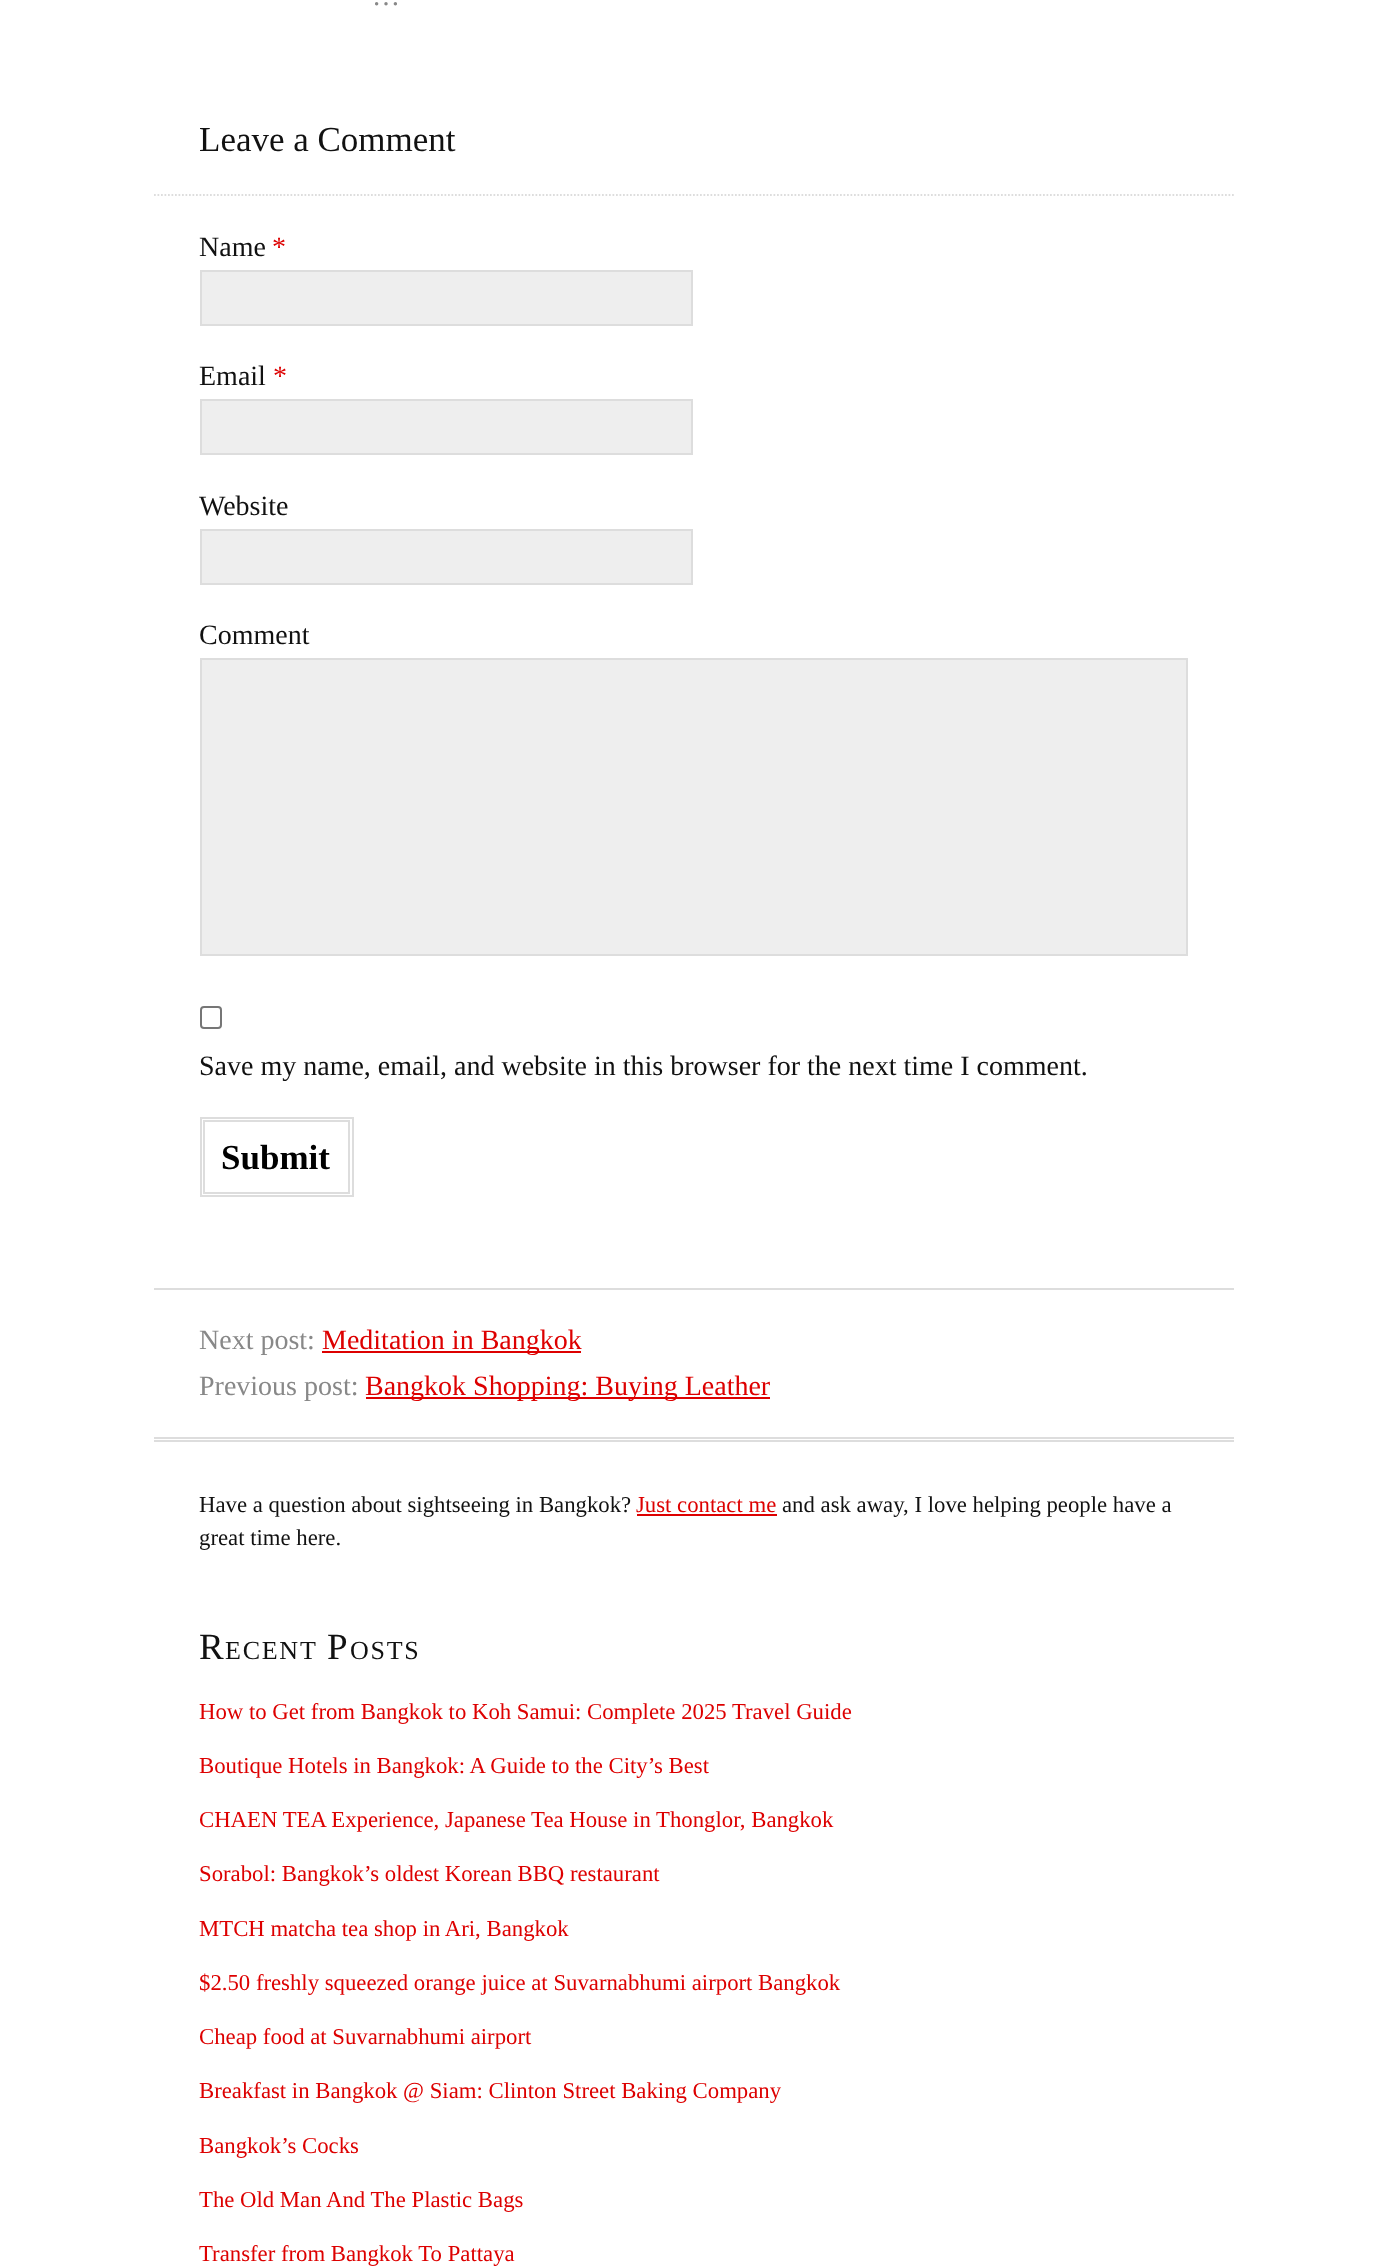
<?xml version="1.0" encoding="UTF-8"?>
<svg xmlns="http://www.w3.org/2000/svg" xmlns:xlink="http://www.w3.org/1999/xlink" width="1385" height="2267">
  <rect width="100%" height="100%" fill="#ffffff" />
  <path d="M 154 195 h 1080" fill="none" stroke="#dddddd" stroke-width="1.8" stroke-dasharray="1.75 1.75" />
  <rect x="201" y="271" width="491" height="54" fill="#eeeeee" stroke="#dddddd" stroke-width="2" />
  <rect x="201" y="400" width="491" height="54" fill="#eeeeee" stroke="#dddddd" stroke-width="2" />
  <rect x="201" y="530" width="491" height="54" fill="#eeeeee" stroke="#dddddd" stroke-width="2" />
  <rect x="201" y="659" width="986" height="296" fill="#eeeeee" stroke="#dddddd" stroke-width="2" />
  <rect x="201" y="1007" width="20" height="21" rx="3" fill="none" stroke="#767676" stroke-width="2" />
  <rect x="201" y="1118" width="152" height="78" fill="none" stroke="#dddddd" stroke-width="2" />
  <rect x="204" y="1121" width="145" height="72" fill="none" stroke="#dddddd" stroke-width="2" />
  <rect x="154" y="1288" width="1080" height="2" fill="#dddddd" />
  <rect x="322" y="1351" width="259" height="2" fill="#dd0000" />
  <rect x="366" y="1397" width="404" height="2" fill="#dd0000" />
  <rect x="154" y="1437" width="1080" height="2" fill="#dddddd" />
  <rect x="154" y="1440" width="1080" height="2" fill="#dddddd" />
  <rect x="637" y="1514" width="140" height="2" fill="#dd0000" />
  <text x="372" y="5" style="font-family: Liberation Serif; font-size: 28px; fill: #888888">…</text>
  <text x="199" y="151" style="font-family: Liberation Serif; font-size: 35px; fill: #111111">Leave a Comment</text>
  <text x="199" y="256" style="font-family: Liberation Serif; font-size: 28px; fill: #111111">Name</text>
  <text x="272" y="256" style="font-family: Liberation Serif; font-size: 28px; fill: #dd0000">*</text>
  <text x="199" y="385" style="font-family: Liberation Serif; font-size: 28px; fill: #111111">Email</text>
  <text x="273" y="385" style="font-family: Liberation Serif; font-size: 28px; fill: #dd0000">*</text>
  <text x="199" y="515" style="font-family: Liberation Serif; font-size: 28px; fill: #111111">Website</text>
  <text x="199" y="644" style="font-family: Liberation Serif; font-size: 28px; fill: #111111">Comment</text>
  <text x="199" y="1075" style="font-family: Liberation Serif; font-size: 28px; fill: #111111">Save my name, email, and website in this browser for the next time I comment.</text>
  <text x="221" y="1169" style="font-family: Liberation Serif; font-size: 35px; font-weight: bold; fill: #000000">Submit</text>
  <text x="199" y="1349" style="font-family: Liberation Serif; font-size: 28px; fill: #888888">Next post:</text>
  <text x="322" y="1349" style="font-family: Liberation Serif; font-size: 28px; fill: #dd0000">Meditation in Bangkok</text>
  <text x="199" y="1395" style="font-family: Liberation Serif; font-size: 28px; fill: #888888">Previous post:</text>
  <text x="365" y="1395" style="font-family: Liberation Serif; font-size: 28px; fill: #dd0000">Bangkok Shopping: Buying Leather</text>
  <text x="199" y="1512" style="font-family: Liberation Serif; font-size: 22.75px; fill: #111111">Have a question about sightseeing in Bangkok?</text>
  <text x="636" y="1512" style="font-family: Liberation Serif; font-size: 22.75px; fill: #dd0000">Just contact me</text>
  <text x="782" y="1512" style="font-family: Liberation Serif; font-size: 22.75px; fill: #111111">and ask away, I love helping people have a</text>
  <text x="199" y="1545" style="font-family: Liberation Serif; font-size: 22.75px; fill: #111111">great time here.</text>
  <text x="199" y="1659" style="font-family: Liberation Serif; font-size: 37px; letter-spacing: 1.75px; fill: #111111">R</text>
  <text x="225" y="1659" style="font-family: Liberation Serif; font-size: 26px; letter-spacing: 1.75px; fill: #111111">ECENT</text>
  <text x="327" y="1659" style="font-family: Liberation Serif; font-size: 37px; letter-spacing: 1.75px; fill: #111111">P</text>
  <text x="350" y="1659" style="font-family: Liberation Serif; font-size: 26px; letter-spacing: 1.75px; fill: #111111">OSTS</text>
  <text x="199" y="1719" style="font-family: Liberation Serif; font-size: 22.75px; fill: #dd0000">How to Get from Bangkok to Koh Samui: Complete 2025 Travel Guide</text>
  <text x="199" y="1773" style="font-family: Liberation Serif; font-size: 22.75px; fill: #dd0000">Boutique Hotels in Bangkok: A Guide to the City’s Best</text>
  <text x="199" y="1827" style="font-family: Liberation Serif; font-size: 22.75px; fill: #dd0000">CHAEN TEA Experience, Japanese Tea House in Thonglor, Bangkok</text>
  <text x="199" y="1881" style="font-family: Liberation Serif; font-size: 22.75px; fill: #dd0000">Sorabol: Bangkok’s oldest Korean BBQ restaurant</text>
  <text x="199" y="1936" style="font-family: Liberation Serif; font-size: 22.75px; fill: #dd0000">MTCH matcha tea shop in Ari, Bangkok</text>
  <text x="199" y="1990" style="font-family: Liberation Serif; font-size: 22.75px; fill: #dd0000">$2.50 freshly squeezed orange juice at Suvarnabhumi airport Bangkok</text>
  <text x="199" y="2044" style="font-family: Liberation Serif; font-size: 22.75px; fill: #dd0000">Cheap food at Suvarnabhumi airport</text>
  <text x="199" y="2098" style="font-family: Liberation Serif; font-size: 22.75px; fill: #dd0000">Breakfast in Bangkok @ Siam: Clinton Street Baking Company</text>
  <text x="199" y="2153" style="font-family: Liberation Serif; font-size: 22.75px; fill: #dd0000">Bangkok’s Cocks</text>
  <text x="199" y="2207" style="font-family: Liberation Serif; font-size: 22.75px; fill: #dd0000">The Old Man And The Plastic Bags</text>
  <text x="199" y="2261" style="font-family: Liberation Serif; font-size: 22.75px; fill: #dd0000">Transfer from Bangkok To Pattaya</text>
</svg>
